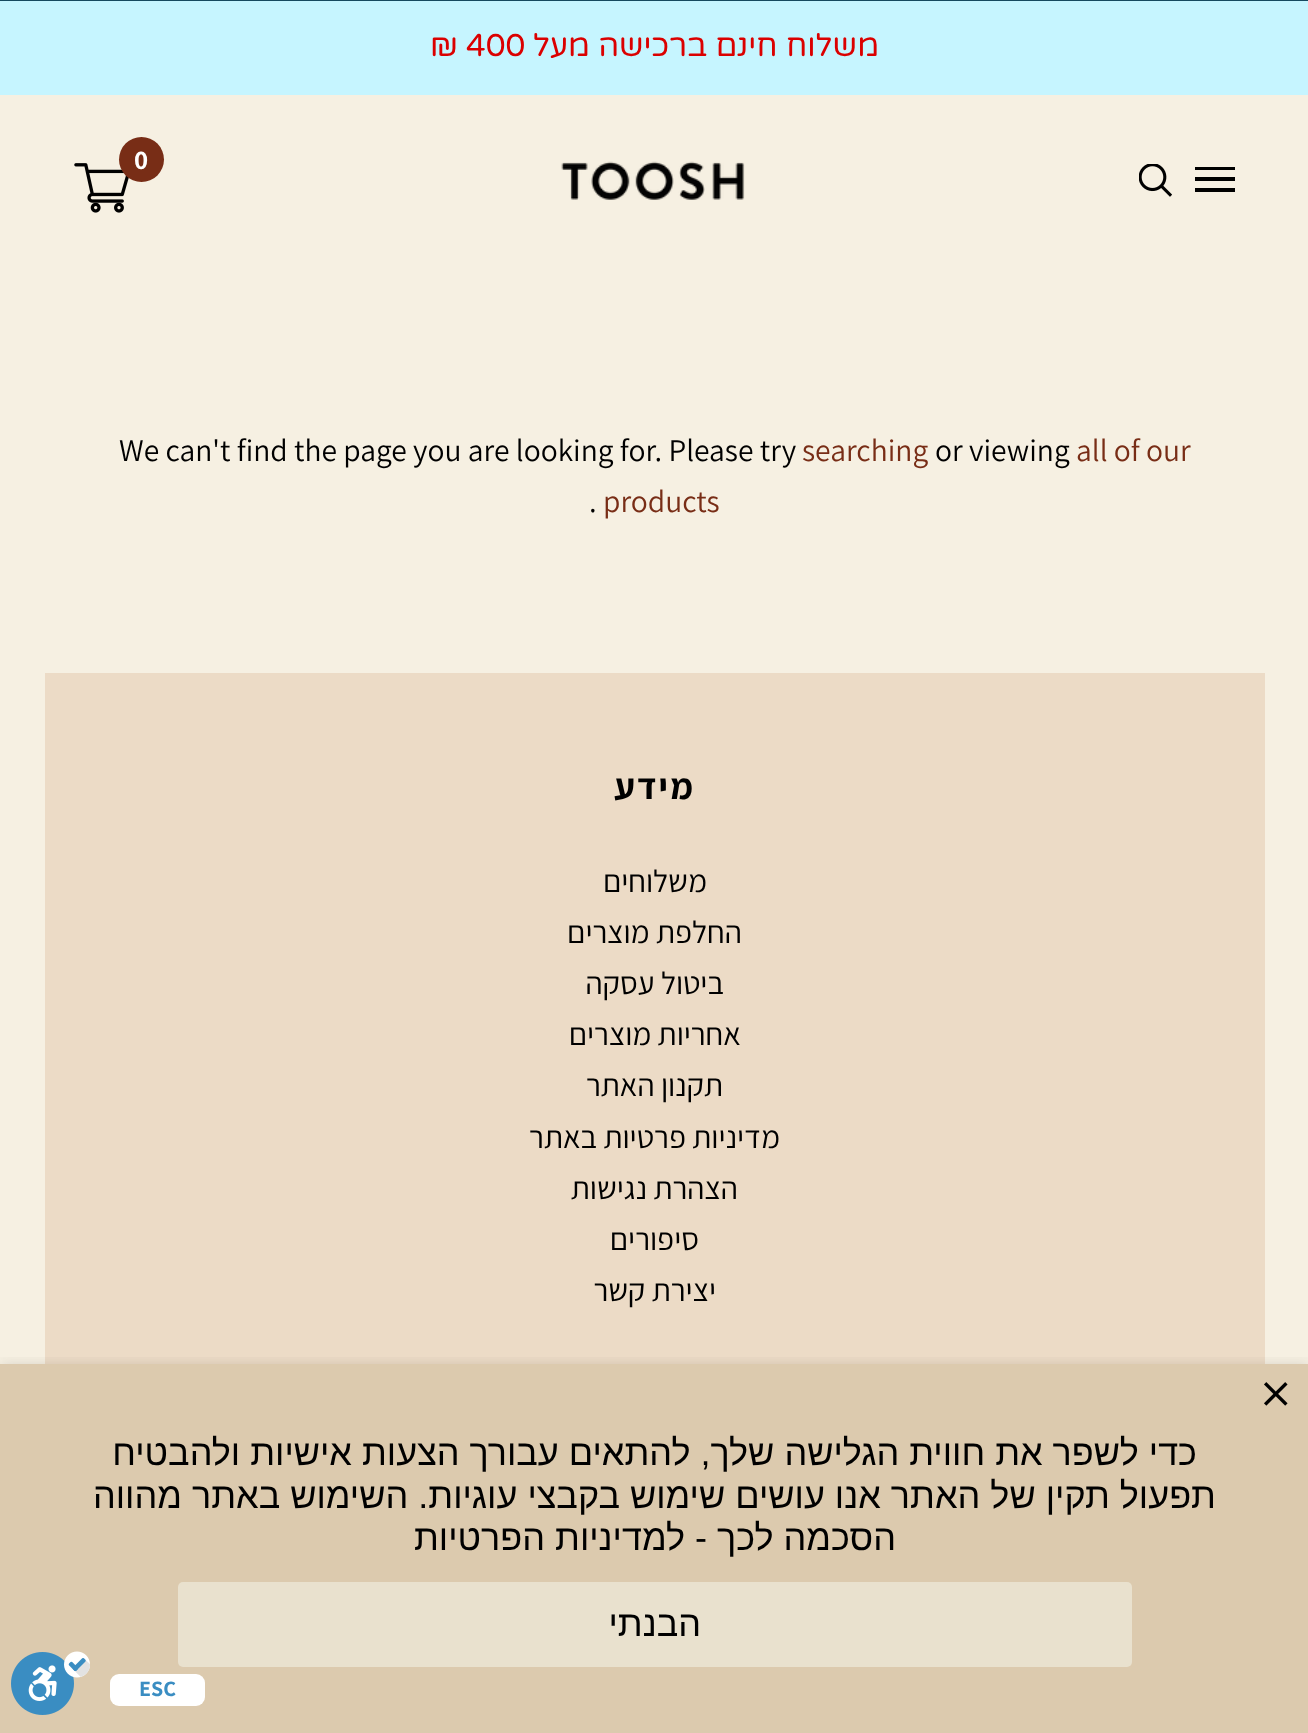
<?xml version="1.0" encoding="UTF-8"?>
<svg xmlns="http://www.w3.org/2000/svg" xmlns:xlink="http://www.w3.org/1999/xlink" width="1308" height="1733">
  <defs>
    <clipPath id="clip1"><rect x="1195" y="167" width="40" height="27" /></clipPath>
    <clipPath id="clip2"><rect x="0" y="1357" width="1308" height="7" /></clipPath>
  </defs>
  <rect width="100%" height="100%" fill="#f6f0e2" />
  <rect y="1" width="1308" height="94" fill="#c6f5ff" />
  <g clip-path="url(#clip1)">
    <path d="M 1195 165 h 40 v 5 h -40 z m 0 12 h 40 v 4 h -40 z m 0 11 h 40 v 4 h -40 z" fill="#000000" fill-rule="evenodd" />
  </g>
  <image x="1139" y="164" width="33" height="33" xlink:href="image1.png" />
  <image x="561" y="161" width="184" height="39" xlink:href="image2.png" />
  <image x="74" y="163" width="55" height="50" xlink:href="image3.png" />
  <circle cx="141.5" cy="159.5" r="22.5" fill="#782d16" />
  <rect x="45" y="673" width="1220" height="691" fill="#ecdbc6" />
  <rect y="1364" width="1308" height="369" fill="#dccaae" />
  <g clip-path="url(#clip2)">
    <rect y="1364" width="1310" height="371" fill="#1c1b1b" fill-opacity="0.12" filter="blur(7px)" />
  </g>
  <image x="1264" y="1382" width="24" height="24" xlink:href="image4.png" />
  <rect x="178" y="1582" width="954" height="85" rx="5" fill="#e9e1ce" />
  <rect width="1308" height="1" fill="#15495f" />
  <rect x="110" y="1674" width="95" height="32" rx="9" fill="#ffffff" />
  <image x="11" y="1651" width="79" height="64" xlink:href="image5.png" />
  <text x="879" y="56" style="font-family: Varela Round; font-size: 31.5px; direction: rtl; fill: #db0000">משלוח חינם ברכישה מעל</text>
  <text x="430" y="56" style="font-family: Varela Round; font-size: 31.5px; fill: #db0000">₪ 400</text>
  <text x="134" y="169" style="font-family: Assistant; font-size: 27px; font-weight: bold; letter-spacing: 1px; fill: #ffffff">0</text>
  <text x="1076" y="461" style="font-family: Assistant; font-size: 31.5px; fill: #782d16">all of our</text>
  <text x="935" y="461" style="font-family: Assistant; font-size: 31.5px; fill: #000000">or viewing</text>
  <text x="802" y="461" style="font-family: Assistant; font-size: 31.5px; fill: #782d16">searching</text>
  <text x="119" y="461" style="font-family: Assistant; font-size: 31.5px; fill: #000000">We can't find the page you are looking for. Please try</text>
  <text x="603" y="512" style="font-family: Assistant; font-size: 31.5px; fill: #782d16">products</text>
  <text x="589" y="512" style="font-family: Assistant; font-size: 31.5px; fill: #000000">.</text>
  <text x="695" y="799" style="font-family: Assistant; font-size: 36px; font-weight: bold; letter-spacing: 2px; direction: rtl; fill: #000000">מידע</text>
  <text x="707" y="892" style="font-family: Assistant; font-size: 31.5px; direction: rtl; fill: #000000">משלוחים</text>
  <text x="742" y="943" style="font-family: Assistant; font-size: 31.5px; direction: rtl; fill: #000000">החלפת מוצרים</text>
  <text x="724" y="994" style="font-family: Assistant; font-size: 31.5px; direction: rtl; fill: #000000">ביטול עסקה</text>
  <text x="741" y="1045" style="font-family: Assistant; font-size: 31.5px; direction: rtl; fill: #000000">אחריות מוצרים</text>
  <text x="723" y="1096" style="font-family: Assistant; font-size: 31.5px; direction: rtl; fill: #000000">תקנון האתר</text>
  <text x="780" y="1148" style="font-family: Assistant; font-size: 31.5px; direction: rtl; fill: #000000">מדיניות פרטיות באתר</text>
  <text x="738" y="1199" style="font-family: Assistant; font-size: 31.5px; direction: rtl; fill: #000000">הצהרת נגישות</text>
  <text x="699" y="1250" style="font-family: Assistant; font-size: 31.5px; direction: rtl; fill: #000000">סיפורים</text>
  <text x="716" y="1301" style="font-family: Assistant; font-size: 31.5px; direction: rtl; fill: #000000">יצירת קשר</text>
  <text x="1197" y="1465" style="font-family: Liberation Sans; font-size: 36px; direction: rtl; fill: #000000">כדי לשפר את חווית הגלישה שלך, להתאים עבורך הצעות אישיות ולהבטיח</text>
  <text x="1216" y="1508" style="font-family: Liberation Sans; font-size: 36px; direction: rtl; fill: #000000">תפעול תקין של האתר אנו עושים שימוש בקבצי עוגיות. השימוש באתר מהווה</text>
  <text x="896" y="1550" style="font-family: Liberation Sans; font-size: 36px; direction: rtl; fill: #000000">הסכמה לכך -</text>
  <text x="685" y="1550" style="font-family: Liberation Sans; font-size: 36px; direction: rtl; fill: #000000">למדיניות הפרטיות</text>
  <text x="701" y="1636" style="font-family: Liberation Sans; font-size: 36px; direction: rtl; fill: #000000">הבנתי</text>
  <text x="139" y="1696" style="font-family: Assistant; font-size: 22px; font-weight: bold; fill: #3a8dc2">ESC</text>
</svg>
